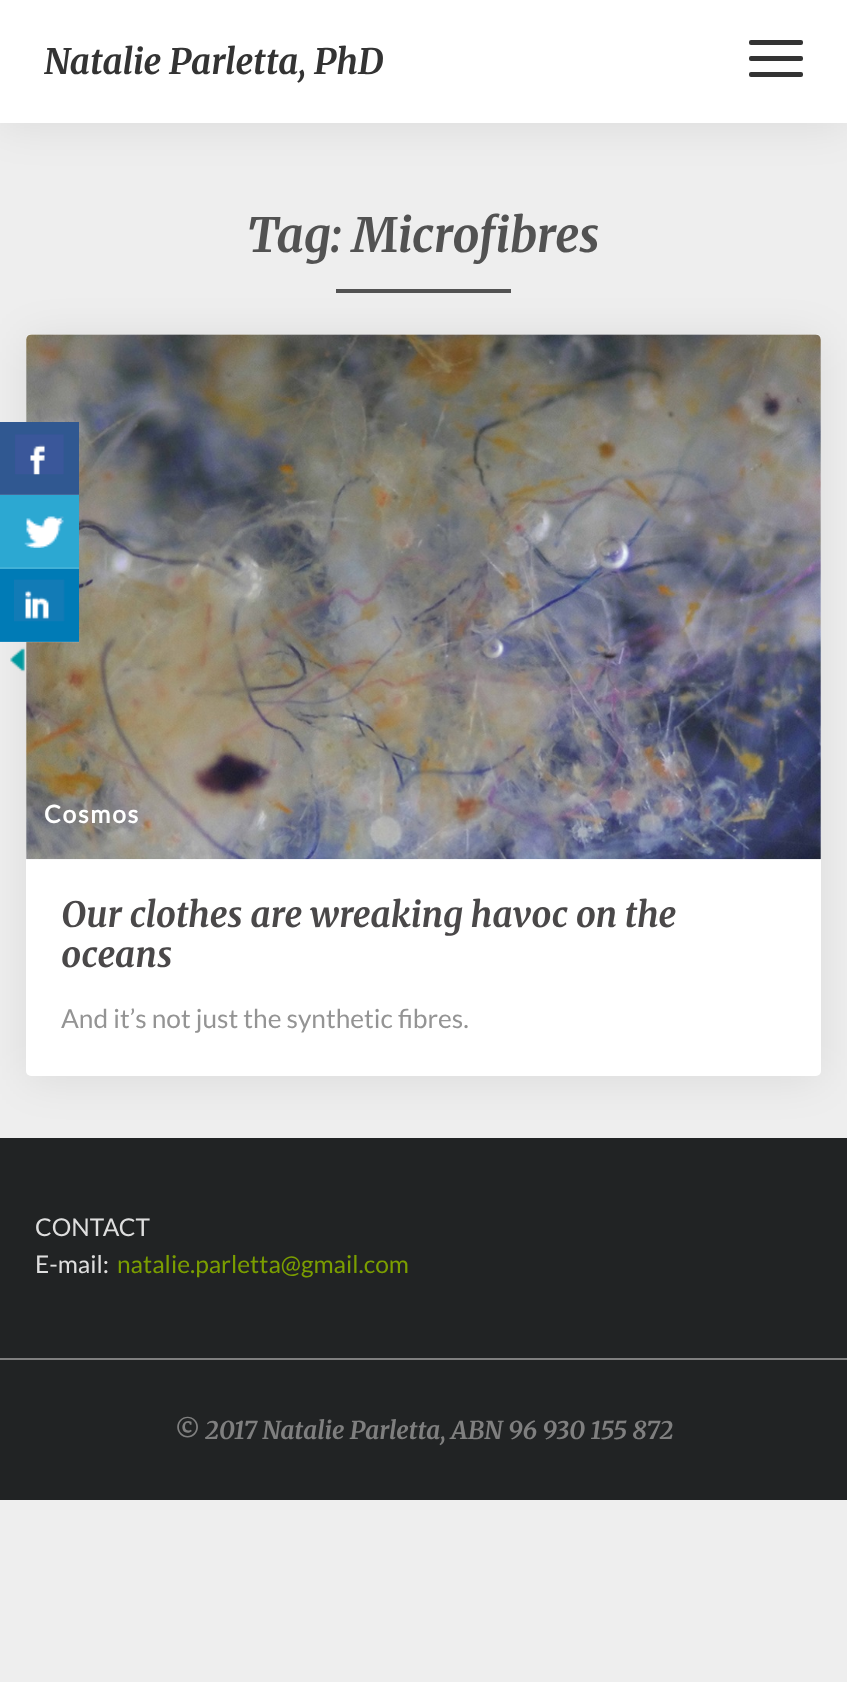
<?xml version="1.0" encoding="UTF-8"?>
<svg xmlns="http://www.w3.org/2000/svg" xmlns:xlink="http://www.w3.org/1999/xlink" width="847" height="1682">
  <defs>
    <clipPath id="clip1"><path d="M 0 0 h 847 v 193 h -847 z m 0 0 h 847 v 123 h -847 z" clip-rule="evenodd" /></clipPath>
  </defs>
  <rect width="100%" height="100%" fill="#eeeeee" />
  <rect width="847" height="123" fill="#ffffff" />
  <g clip-path="url(#clip1)">
    <rect y="4" width="847" height="122" fill="#000000" fill-opacity="0.08" filter="blur(22px)" />
  </g>
  <rect x="749" y="40" width="54" height="5" rx="2" fill="#333333" />
  <rect x="749" y="56" width="54" height="5" rx="2" fill="#333333" />
  <rect x="749" y="72" width="54" height="5" rx="2" fill="#333333" />
  <rect x="336" y="289" width="175" height="4" fill="#525252" />
  <rect y="1138" width="847" height="220" fill="#212324" />
  <rect x="26" y="338" width="795" height="742" rx="5" fill="#000000" fill-opacity="0.08" filter="blur(22px)" />
  <rect x="26" y="334" width="795" height="742" rx="5" fill="#ffffff" />
  <image x="26" y="334" width="795" height="526" xlink:href="image1.png" />
  <rect y="1360" width="847" height="140" fill="#212324" />
  <rect y="1358" width="847" height="2" fill="#7f7f7f" />
  <rect y="422" width="79" height="73" fill="#305891" />
  <rect y="494" width="79" height="1" fill="#ffffff" fill-opacity="0.1" />
  <image x="15" y="434" width="49" height="41" xlink:href="image2.png" />
  <rect y="495" width="79" height="72" fill="#2ca8d2" />
  <rect y="567" width="79" height="2" fill="#41b1d7" />
  <image x="24" y="516" width="40" height="32" xlink:href="image3.png" />
  <rect y="569" width="79" height="73" fill="#007bb6" />
  <rect y="641" width="79" height="2" fill="#ffffff" fill-opacity="0.1" />
  <image x="14" y="579" width="51" height="43" xlink:href="image4.png" />
  <image x="10" y="647" width="15" height="25" xlink:href="image5.png" />
  <text x="44" y="74" style="font-family: Merriweather; font-size: 35px; font-weight: 300; font-style: italic; fill: #333333">Natalie Parletta, PhD</text>
  <text x="247" y="252" style="font-family: Merriweather; font-size: 47.25px; font-weight: 300; font-style: italic; fill: #525252">Tag: Microfibres</text>
  <text x="44" y="823" style="font-family: Lato; font-size: 24.5px; font-weight: bold; letter-spacing: 1.75px; fill: #ffffff">Cosmos</text>
  <text x="61" y="927" style="font-family: Merriweather; font-size: 35px; font-weight: 300; font-style: italic; fill: #4a4849">Our clothes are wreaking havoc on the</text>
  <text x="61" y="967" style="font-family: Merriweather; font-size: 35px; font-weight: 300; font-style: italic; fill: #4a4849">oceans</text>
  <text x="61" y="1028" style="font-family: Lato; font-size: 26.25px; fill: #949494">And it’s not just the synthetic fibres.</text>
  <text x="35" y="1236" style="font-family: Lato; font-size: 24.5px; fill: #dedede">CONTACT</text>
  <text x="35" y="1273" style="font-family: Lato; font-size: 24.5px; fill: #dedede">E-mail:</text>
  <text x="117" y="1273" style="font-family: Lato; font-size: 24.5px; fill: #7b9e00">natalie.parletta@gmail.com</text>
  <text x="174" y="1439" style="font-family: Merriweather; font-size: 24.5px; font-weight: 300; font-style: italic; fill: #7f7f7f">© 2017 Natalie Parletta, ABN 96 930 155 872</text>
</svg>
